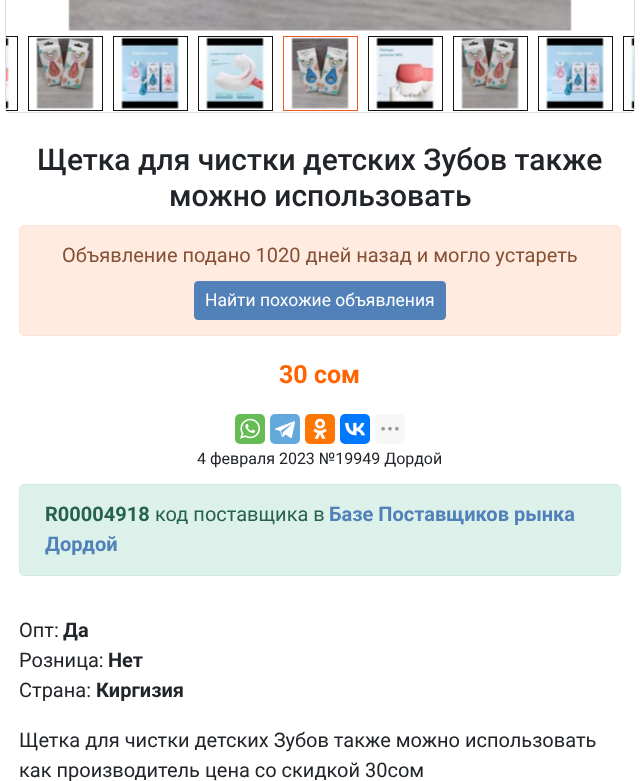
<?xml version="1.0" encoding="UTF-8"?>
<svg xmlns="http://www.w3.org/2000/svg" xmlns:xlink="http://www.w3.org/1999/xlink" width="640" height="781">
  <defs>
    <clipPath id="clip1"><rect x="6" y="36" width="628" height="75" /></clipPath>
  </defs>
  <rect width="100%" height="100%" fill="#ffffff" />
  <rect x="5.5" y="-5.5" width="629" height="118" rx="4.5" fill="none" stroke="#dfdfdf" />
  <image x="68" y="0" width="504" height="31" xlink:href="image1.png" />
  <g clip-path="url(#clip1)">
    <rect x="-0.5" y="36.5" width="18" height="74" fill="none" stroke="#141414" />
  </g>
  <image x="6" y="37" width="6" height="72" xlink:href="image2.png" />
  <rect x="28.5" y="36.5" width="74" height="74" fill="none" stroke="#141414" />
  <image x="36" y="37" width="58" height="72" xlink:href="image3.png" />
  <rect x="113.5" y="36.5" width="74" height="74" fill="none" stroke="#141414" />
  <image x="118" y="37" width="65" height="72" xlink:href="image4.png" />
  <rect x="198.5" y="36.5" width="74" height="74" fill="none" stroke="#141414" />
  <image x="205" y="37" width="63" height="72" xlink:href="image5.png" />
  <rect x="283.5" y="36.5" width="74" height="74" fill="none" stroke="#f05923" />
  <image x="291" y="37" width="61" height="72" xlink:href="image6.png" />
  <rect x="368.5" y="36.5" width="74" height="74" fill="none" stroke="#141414" />
  <image x="371" y="37" width="66" height="72" xlink:href="image7.png" />
  <rect x="453.5" y="36.5" width="74" height="74" fill="none" stroke="#141414" />
  <image x="461" y="37" width="58" height="72" xlink:href="image3.png" />
  <rect x="538.5" y="36.5" width="74" height="74" fill="none" stroke="#141414" />
  <image x="543" y="37" width="65" height="72" xlink:href="image4.png" />
  <g clip-path="url(#clip1)">
    <rect x="623.5" y="36.5" width="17" height="74" fill="none" stroke="#141414" />
  </g>
  <image x="630" y="37" width="4" height="72" xlink:href="image8.png" />
  <rect x="19.5" y="225.5" width="601" height="110" rx="4.5" fill="#ffebe0" stroke="#ffe3d4" />
  <rect x="194.5" y="281.5" width="251" height="38" rx="3.5" fill="#5181b8" stroke="#5181b8" />
  <rect x="235" y="414" width="30" height="30" rx="5" fill="#65bc54" />
  <image x="240" y="418" width="20" height="21" xlink:href="image9.png" />
  <rect x="270" y="414" width="30" height="30" rx="5" fill="#64a9dc" />
  <image x="275" y="421" width="20" height="17" xlink:href="image10.png" />
  <rect x="305" y="414" width="30" height="30" rx="5" fill="#ff7700" />
  <image x="313" y="418" width="14" height="21" xlink:href="image11.png" />
  <rect x="340" y="414" width="30" height="30" rx="5" fill="#0077ff" />
  <image x="345" y="422" width="20" height="14" xlink:href="image12.png" />
  <rect x="375" y="414" width="30" height="30" rx="5" fill="#f7f7f7" />
  <image x="381" y="426" width="18" height="5" xlink:href="image13.png" />
  <rect x="19.5" y="484.5" width="601" height="91" rx="4.5" fill="#dbf1ea" stroke="#ccece2" />
  <text x="37" y="170" style="font-family: Roboto; font-size: 30px; font-weight: 500; fill: #212529">Щетка для чистки детских Зубов также</text>
  <text x="169" y="206" style="font-family: Roboto; font-size: 30px; font-weight: 500; fill: #212529">можно использовать</text>
  <text x="62" y="262" style="font-family: Roboto; font-size: 20px; fill: #855034">Объявление подано 1020 дней назад и могло устареть</text>
  <text x="205" y="306" style="font-family: Roboto; font-size: 17.5px; fill: #ffffff">Найти похожие объявления</text>
  <text x="279" y="383" style="font-family: Roboto; font-size: 25px; font-weight: bold; fill: #ff6400">30 сом</text>
  <text x="197" y="464" style="font-family: Roboto; font-size: 16px; fill: #212529">4 февраля 2023 №19949 Дордой</text>
  <text x="45" y="521" style="font-family: Roboto; font-size: 20px; font-weight: bold; fill: #26614f">R00004918</text>
  <text x="155" y="521" style="font-family: Roboto; font-size: 20px; fill: #26614f">код поставщика в</text>
  <text x="329" y="521" style="font-family: Roboto; font-size: 20px; font-weight: bold; fill: #5181b8">Базе Поставщиков рынка</text>
  <text x="45" y="551" style="font-family: Roboto; font-size: 20px; font-weight: bold; fill: #5181b8">Дордой</text>
  <text x="19" y="637" style="font-family: Roboto; font-size: 20px; fill: #212529">Опт:</text>
  <text x="63" y="637" style="font-family: Roboto; font-size: 20px; font-weight: bold; fill: #212529">Да</text>
  <text x="19" y="667" style="font-family: Roboto; font-size: 20px; fill: #212529">Розница:</text>
  <text x="108" y="667" style="font-family: Roboto; font-size: 20px; font-weight: bold; fill: #212529">Нет</text>
  <text x="19" y="697" style="font-family: Roboto; font-size: 20px; fill: #212529">Страна:</text>
  <text x="96" y="697" style="font-family: Roboto; font-size: 20px; font-weight: bold; fill: #212529">Киргизия</text>
  <text x="19" y="747" style="font-family: Roboto; font-size: 20px; fill: #212529">Щетка для чистки детских Зубов также можно использовать</text>
  <text x="19" y="777" style="font-family: Roboto; font-size: 20px; fill: #212529">как производитель цена со скидкой 30сом</text>
</svg>
